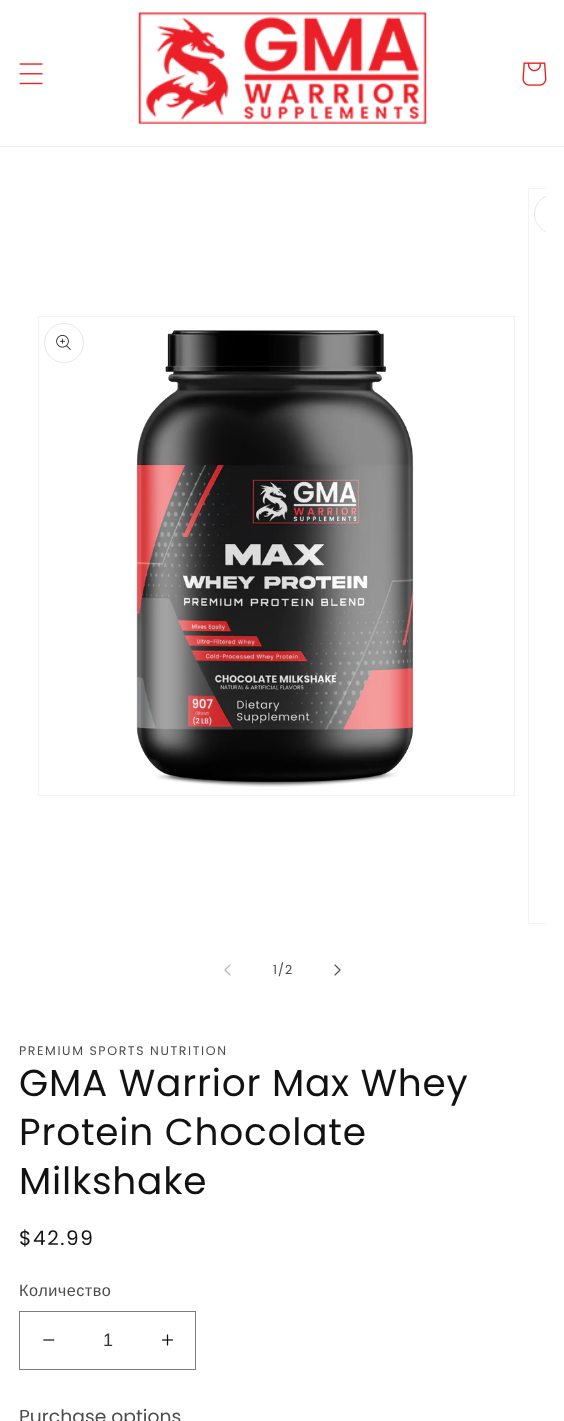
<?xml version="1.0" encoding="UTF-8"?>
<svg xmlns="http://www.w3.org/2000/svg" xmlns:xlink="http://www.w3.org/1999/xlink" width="564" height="1421">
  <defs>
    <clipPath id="clip1"><rect x="19" y="181" width="527" height="749" /></clipPath>
  </defs>
  <rect width="100%" height="100%" fill="#ffffff" />
  <rect y="146" width="564" height="1" fill="#ececec" />
  <image x="19" y="63" width="24" height="22" xlink:href="image1.png" />
  <image x="138" y="12" width="289" height="112" xlink:href="image2.png" />
  <image x="522" y="62" width="25" height="24" xlink:href="image3.png" />
  <rect x="38.5" y="316.5" width="476" height="479" fill="none" stroke="#f3f3f3" />
  <image x="136" y="330" width="278" height="457" xlink:href="image4.png" />
  <circle cx="64" cy="343" r="19.5" fill="none" stroke="#e7e7e7" />
  <image x="56" y="335" width="15" height="15" xlink:href="image5.png" />
  <g clip-path="url(#clip1)">
    <rect x="528.5" y="188.5" width="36" height="735" fill="none" stroke="#f3f3f3" />
    <circle cx="554" cy="214" r="19.5" fill="none" stroke="#e7e7e7" />
  </g>
  <image x="224" y="964" width="7" height="12" xlink:href="image6.png" />
  <image x="334" y="964" width="7" height="12" xlink:href="image7.png" />
  <image x="43" y="1339" width="12" height="2" xlink:href="image8.png" />
  <image x="162" y="1334" width="12" height="12" xlink:href="image9.png" />
  <rect x="19.5" y="1311.5" width="176" height="58" fill="none" stroke="#7d7d7d" />
  <text x="273" y="974" style="font-family: Poppins; font-size: 12.5px; letter-spacing: 1px; fill: #4d4d4d">1/2</text>
  <text x="19" y="1055" style="font-family: Poppins; font-size: 12.5px; letter-spacing: 1.6px; fill: #4d4d4d">PREMIUM SPORTS NUTRITION</text>
  <text x="19" y="1096" style="font-family: Poppins; font-size: 37.5px; letter-spacing: 0.75px; fill: #121212">GMA Warrior Max Whey</text>
  <text x="19" y="1145" style="font-family: Poppins; font-size: 37.5px; letter-spacing: 0.75px; fill: #121212">Protein Chocolate</text>
  <text x="19" y="1194" style="font-family: Poppins; font-size: 37.5px; letter-spacing: 0.75px; fill: #121212">Milkshake</text>
  <text x="19" y="1245" style="font-family: Poppins; font-size: 20px; letter-spacing: 1.6px; fill: #121212">$42.99</text>
  <text x="19" y="1296" style="font-family: Liberation Sans; font-size: 16.25px; letter-spacing: 0.5px; fill: #4d4d4d">Количество</text>
  <text x="103" y="1346" style="font-family: Liberation Sans; font-size: 18px; fill: #363636">1</text>
  <text x="19" y="1423" style="font-family: Poppins; font-size: 18.75px; fill: #4d4d4d">Purchase options</text>
</svg>
